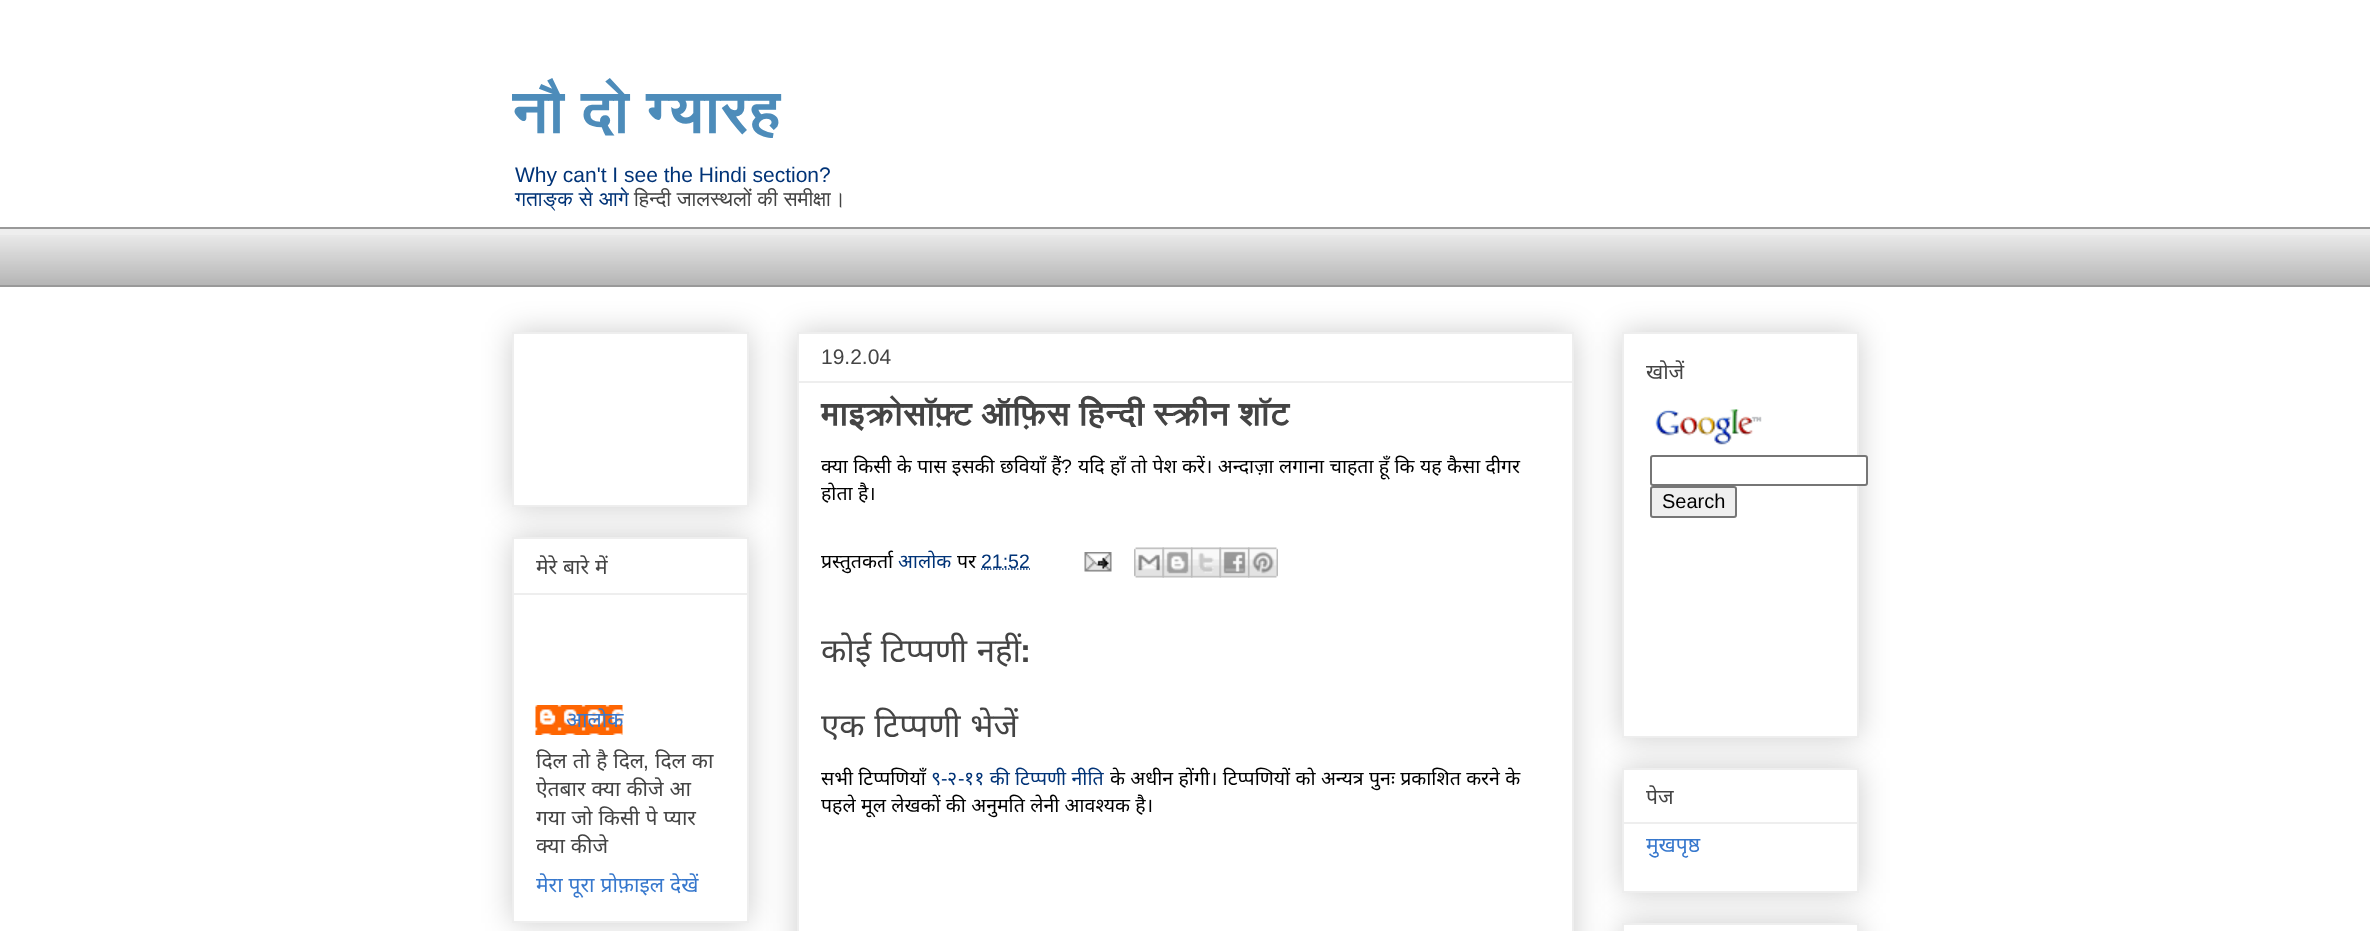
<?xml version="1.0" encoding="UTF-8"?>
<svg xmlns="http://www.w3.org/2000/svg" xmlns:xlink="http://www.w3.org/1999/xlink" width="2370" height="931">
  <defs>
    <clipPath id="clip1"><rect x="512" y="45" width="1347" height="182" /></clipPath>
  </defs>
  <rect width="100%" height="100%" fill="#ffffff" />
  <rect y="229" width="2370" height="56" fill="#eeeeee" />
  <image x="0" y="235" width="2370" height="50" xlink:href="image1.png" />
  <rect y="227" width="2370" height="2" fill="#999999" />
  <rect y="285" width="2370" height="2" fill="#999999" />
  <rect x="512" y="332" width="237" height="175" fill="#000000" fill-opacity="0.2" filter="blur(15px)" />
  <rect x="513" y="333" width="235" height="173" fill="#ffffff" stroke="#eeeeee" stroke-width="2" />
  <rect x="512" y="537" width="237" height="386" fill="#000000" fill-opacity="0.2" filter="blur(15px)" />
  <rect x="513" y="538" width="235" height="384" fill="#ffffff" stroke="#eeeeee" stroke-width="2" />
  <rect x="513" y="593" width="234" height="2" fill="#eeeeee" />
  <image x="535" y="705" width="88" height="30" xlink:href="image2.png" />
  <rect x="797" y="332" width="777" height="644" fill="#000000" fill-opacity="0.2" filter="blur(15px)" />
  <rect x="798" y="333" width="775" height="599" fill="#ffffff" stroke="#eeeeee" stroke-width="2" />
  <rect x="798" y="381" width="774" height="2" fill="#eeeeee" />
  <path d="M 981 569 h 49" fill="none" stroke="#003377" stroke-width="1.5" stroke-dasharray="1.5 1.5" />
  <image x="1084" y="552" width="28" height="20" xlink:href="image3.png" />
  <image x="1134" y="547" width="30" height="31" xlink:href="image4.png" />
  <image x="1162" y="547" width="31" height="31" xlink:href="image5.png" />
  <image x="1191" y="547" width="30" height="31" xlink:href="image6.png" />
  <image x="1219" y="547" width="31" height="31" xlink:href="image7.png" />
  <image x="1248" y="547" width="30" height="31" xlink:href="image8.png" />
  <rect x="1622" y="332" width="237" height="406" fill="#000000" fill-opacity="0.2" filter="blur(15px)" />
  <rect x="1623" y="333" width="235" height="404" fill="#ffffff" stroke="#eeeeee" stroke-width="2" />
  <image x="1655" y="409" width="107" height="36" xlink:href="image9.png" />
  <rect x="1651" y="456" width="216" height="29" rx="2" fill="#ffffff" stroke="#767676" stroke-width="2" />
  <rect x="1651" y="487" width="85" height="30" rx="2" fill="#efefef" stroke="#767676" stroke-width="2" />
  <rect x="1622" y="768" width="237" height="125" fill="#000000" fill-opacity="0.2" filter="blur(15px)" />
  <rect x="1623" y="769" width="235" height="123" fill="#ffffff" stroke="#eeeeee" stroke-width="2" />
  <rect x="1623" y="822" width="234" height="2" fill="#eeeeee" />
  <rect x="1622" y="923" width="237" height="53" fill="#000000" fill-opacity="0.2" filter="blur(15px)" />
  <rect x="1623" y="924" width="235" height="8" fill="#ffffff" stroke="#eeeeee" stroke-width="2" />
  <g clip-path="url(#clip1)">
    <text x="512" y="132" style="font-family: FreeSans; font-size: 60px; font-weight: 600; fill: #4d8cba">नौ दो ग्यारह</text>
  </g>
  <text x="515" y="182" style="font-family: Liberation Sans; font-size: 21px; fill: #003377">Why can't I see the Hindi section?</text>
  <rect x="546" y="186" width="4" height="1" fill="#ffffff" />
  <text x="515" y="206" word-spacing="0.5" style="font-family: FreeSans; font-size: 21px; fill: #003377">गताङ्क से आगे</text>
  <text x="634" y="206" word-spacing="0.5" style="font-family: FreeSans; font-size: 21px; fill: #444444">हिन्दी जालस्थलों की समीक्षा।</text>
  <text x="536" y="574" word-spacing="0.5" style="font-family: Noto Sans; font-size: 21px; fill: #444444">मेरे बारे में</text>
  <text x="566" y="727" style="font-family: Noto Sans; font-size: 21px; fill: #3778cd">आलोक</text>
  <text x="536" y="768" word-spacing="0.5" style="font-family: Noto Sans; font-size: 21px; fill: #444444">दिल तो है दिल</text>
  <text x="643" y="768" style="font-family: Liberation Sans; font-size: 21px; fill: #444444">,</text>
  <text x="655" y="768" word-spacing="0.5" style="font-family: Noto Sans; font-size: 21px; fill: #444444">दिल का</text>
  <text x="536" y="796" word-spacing="0.5" style="font-family: Noto Sans; font-size: 21px; fill: #444444">ऐतबार क्या कीजे आ</text>
  <text x="536" y="825" word-spacing="0.5" style="font-family: Noto Sans; font-size: 21px; fill: #444444">गया जो किसी पे प्यार</text>
  <text x="536" y="853" word-spacing="0.5" style="font-family: Noto Sans; font-size: 21px; fill: #444444">क्या कीजे</text>
  <text x="536" y="892" word-spacing="0.5" style="font-family: Noto Sans; font-size: 21px; fill: #3778cd">मेरा पूरा प्रोफ़ाइल देखें</text>
  <text x="821" y="364" style="font-family: Liberation Sans; font-size: 21px; fill: #444444">19.2.04</text>
  <text x="821" y="425" style="font-family: FreeSans; font-size: 33px; font-weight: 600; fill: #444444">माइक्रोसॉफ़्ट ऑफ़िस हिन्दी स्क्रीन शॉट</text>
  <text x="821" y="473" word-spacing="0.3" style="font-family: Noto Sans; font-size: 19.5px; fill: #000000">क्या किसी के पास इसकी छवियाँ हैं</text>
  <text x="1061" y="473" style="font-family: Liberation Sans; font-size: 19.5px; fill: #000000">?</text>
  <text x="1078" y="473" word-spacing="0.3" style="font-family: Noto Sans; font-size: 19.5px; fill: #000000">यदि हाँ तो पेश करें। अन्दाज़ा लगाना चाहता हूँ कि यह कैसा दीगर</text>
  <text x="821" y="500" word-spacing="0.3" style="font-family: Noto Sans; font-size: 19.5px; fill: #000000">होता है।</text>
  <text x="821" y="568" style="font-family: Noto Sans; font-size: 19.5px; fill: #000000">प्रस्तुतकर्ता</text>
  <text x="898" y="568" style="font-family: Noto Sans; font-size: 19.5px; fill: #003377">आलोक</text>
  <text x="957" y="568" style="font-family: Noto Sans; font-size: 19.5px; fill: #000000">पर</text>
  <text x="981" y="568" style="font-family: Liberation Sans; font-size: 19.5px; fill: #003377">21:52</text>
  <text x="821" y="662" word-spacing="1" style="font-family: Noto Sans; font-size: 33px; fill: #444444">कोई टिप्पणी नहीं</text>
  <text x="1020" y="662" style="font-family: Liberation Sans; font-size: 33px; font-weight: bold; fill: #444444">:</text>
  <text x="821" y="737" word-spacing="1" style="font-family: Noto Sans; font-size: 33px; fill: #444444">एक टिप्पणी भेजें</text>
  <text x="821" y="785" word-spacing="0.3" style="font-family: Noto Sans; font-size: 19.5px; fill: #000000">सभी टिप्पणियाँ</text>
  <text x="931" y="785" style="font-family: Noto Sans; font-size: 19.5px; fill: #003377">९</text>
  <text x="941" y="785" style="font-family: Liberation Sans; font-size: 19.5px; fill: #003377">-</text>
  <text x="947" y="785" style="font-family: Noto Sans; font-size: 19.5px; fill: #003377">२</text>
  <text x="958" y="785" style="font-family: Liberation Sans; font-size: 19.5px; fill: #003377">-</text>
  <text x="964" y="785" word-spacing="0.3" style="font-family: Noto Sans; font-size: 19.5px; fill: #003377">११ की टिप्पणी नीति</text>
  <text x="1110" y="785" word-spacing="0.3" style="font-family: Noto Sans; font-size: 19.5px; fill: #000000">के अधीन होंगी। टिप्पणियों को अन्यत्र पुनः प्रकाशित करने के</text>
  <text x="821" y="812" word-spacing="0.3" style="font-family: Noto Sans; font-size: 19.5px; fill: #000000">पहले मूल लेखकों की अनुमति लेनी आवश्यक है।</text>
  <text x="1646" y="379" style="font-family: Noto Sans; font-size: 21px; fill: #444444">खोजें</text>
  <text x="1662" y="508" style="font-family: Liberation Sans; font-size: 20px; fill: #000000">Search</text>
  <text x="1646" y="804" style="font-family: Noto Sans; font-size: 21px; fill: #444444">पेज</text>
  <text x="1646" y="852" style="font-family: Noto Sans; font-size: 21px; fill: #3778cd">मुखपृष्ठ</text>
</svg>
